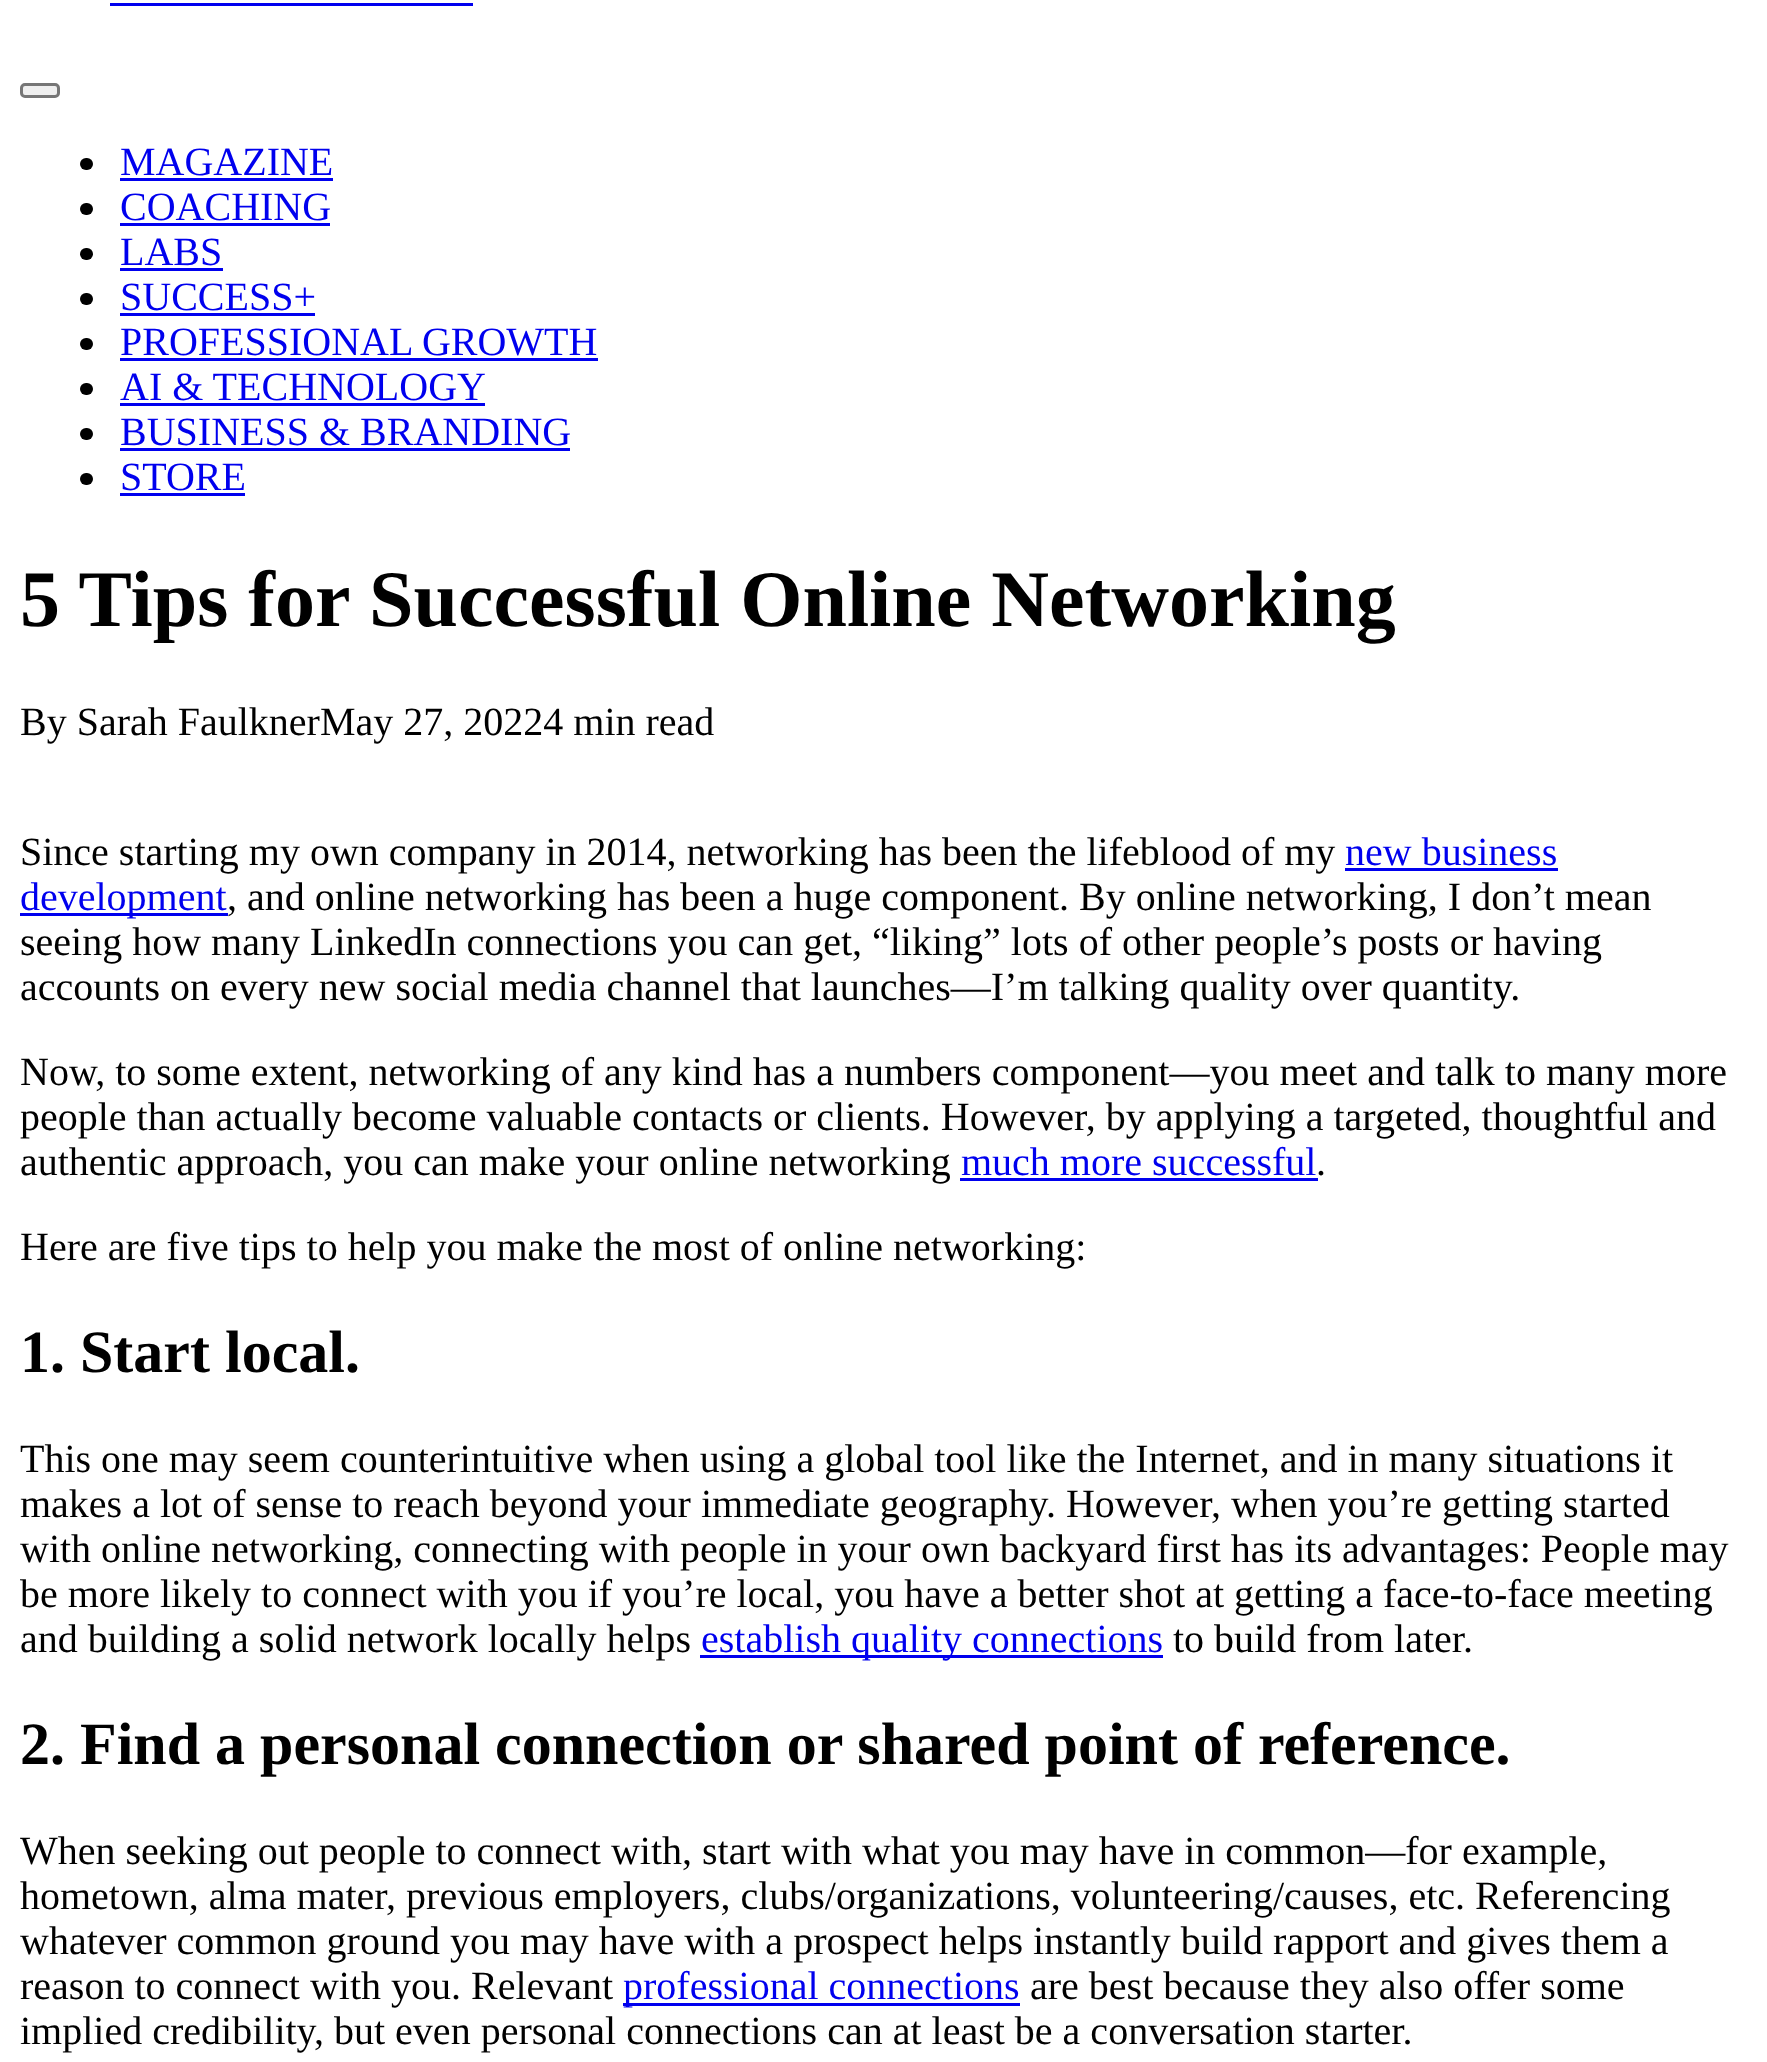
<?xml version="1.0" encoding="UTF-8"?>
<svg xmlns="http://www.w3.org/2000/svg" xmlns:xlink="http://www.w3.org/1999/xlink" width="1767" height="2062">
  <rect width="100%" height="100%" fill="#ffffff" />
  <rect x="110" y="3" width="363" height="3" fill="#0000ee" />
  <rect x="21.5" y="84.5" width="37" height="12" rx="3.5" fill="#efefef" stroke="#767676" stroke-width="3" />
  <rect x="80" y="158" width="13" height="12" rx="6" fill="#000000" />
  <rect x="120" y="178" width="213" height="3" fill="#0000ee" />
  <rect x="80" y="203" width="13" height="12" rx="6" fill="#000000" />
  <rect x="120" y="223" width="210" height="3" fill="#0000ee" />
  <rect x="80" y="248" width="13" height="12" rx="6" fill="#000000" />
  <rect x="120" y="268" width="103" height="3" fill="#0000ee" />
  <rect x="80" y="293" width="13" height="12" rx="6" fill="#000000" />
  <rect x="120" y="313" width="195" height="3" fill="#0000ee" />
  <rect x="80" y="338" width="13" height="12" rx="6" fill="#000000" />
  <rect x="120" y="358" width="478" height="3" fill="#0000ee" />
  <rect x="80" y="383" width="13" height="12" rx="6" fill="#000000" />
  <rect x="120" y="403" width="365" height="3" fill="#0000ee" />
  <rect x="80" y="428" width="13" height="12" rx="6" fill="#000000" />
  <rect x="120" y="448" width="450" height="3" fill="#0000ee" />
  <rect x="80" y="473" width="13" height="12" rx="6" fill="#000000" />
  <rect x="120" y="493" width="125" height="3" fill="#0000ee" />
  <rect x="1345" y="868" width="213" height="3" fill="#0000ee" />
  <rect x="20" y="913" width="208" height="3" fill="#0000ee" />
  <rect x="960" y="1178" width="358" height="3" fill="#0000ee" />
  <rect x="700" y="1655" width="463" height="3" fill="#0000ee" />
  <rect x="623" y="2003" width="397" height="3" fill="#0000ee" />
  <text x="120" y="175" style="font-family: Liberation Serif; font-size: 40px; fill: #0000ee">MAGAZINE</text>
  <text x="120" y="220" style="font-family: Liberation Serif; font-size: 40px; fill: #0000ee">COACHING</text>
  <text x="120" y="265" style="font-family: Liberation Serif; font-size: 40px; fill: #0000ee">LABS</text>
  <text x="120" y="310" style="font-family: Liberation Serif; font-size: 40px; fill: #0000ee">SUCCESS+</text>
  <text x="120" y="355" style="font-family: Liberation Serif; font-size: 40px; fill: #0000ee">PROFESSIONAL GROWTH</text>
  <text x="120" y="400" style="font-family: Liberation Serif; font-size: 40px; fill: #0000ee">AI &amp; TECHNOLOGY</text>
  <text x="120" y="445" style="font-family: Liberation Serif; font-size: 40px; fill: #0000ee">BUSINESS &amp; BRANDING</text>
  <text x="120" y="490" style="font-family: Liberation Serif; font-size: 40px; fill: #0000ee">STORE</text>
  <text x="20" y="626" style="font-family: Liberation Serif; font-size: 80px; font-weight: bold; fill: #000000">5 Tips for Successful Online Networking</text>
  <text x="20" y="735" style="font-family: Liberation Serif; font-size: 40px; fill: #000000">By Sarah FaulknerMay 27, 20224 min read</text>
  <text x="20" y="865" style="font-family: Liberation Serif; font-size: 40px; fill: #000000">Since starting my own company in 2014, networking has been the lifeblood of my</text>
  <text x="1345" y="865" style="font-family: Liberation Serif; font-size: 40px; fill: #0000ee">new business</text>
  <text x="20" y="910" style="font-family: Liberation Serif; font-size: 40px; fill: #0000ee">development</text>
  <text x="227" y="910" style="font-family: Liberation Serif; font-size: 40px; fill: #000000">, and online networking has been a huge component. By online networking, I don’t mean</text>
  <text x="20" y="955" style="font-family: Liberation Serif; font-size: 40px; fill: #000000">seeing how many LinkedIn connections you can get, “liking” lots of other people’s posts or having</text>
  <text x="20" y="1000" style="font-family: Liberation Serif; font-size: 40px; fill: #000000">accounts on every new social media channel that launches—I’m talking quality over quantity.</text>
  <text x="20" y="1085" style="font-family: Liberation Serif; font-size: 40px; fill: #000000">Now, to some extent, networking of any kind has a numbers component—you meet and talk to many more</text>
  <text x="20" y="1130" style="font-family: Liberation Serif; font-size: 40px; fill: #000000">people than actually become valuable contacts or clients. However, by applying a targeted, thoughtful and</text>
  <text x="20" y="1175" style="font-family: Liberation Serif; font-size: 40px; fill: #000000">authentic approach, you can make your online networking</text>
  <text x="961" y="1175" style="font-family: Liberation Serif; font-size: 40px; fill: #0000ee">much more successful</text>
  <text x="1316" y="1175" style="font-family: Liberation Serif; font-size: 40px; fill: #000000">.</text>
  <text x="20" y="1260" style="font-family: Liberation Serif; font-size: 40px; fill: #000000">Here are five tips to help you make the most of online networking:</text>
  <text x="20" y="1372" style="font-family: Liberation Serif; font-size: 60px; font-weight: bold; fill: #000000">1. Start local.</text>
  <text x="20" y="1472" style="font-family: Liberation Serif; font-size: 40px; fill: #000000">This one may seem counterintuitive when using a global tool like the Internet, and in many situations it</text>
  <text x="20" y="1517" style="font-family: Liberation Serif; font-size: 40px; fill: #000000">makes a lot of sense to reach beyond your immediate geography. However, when you’re getting started</text>
  <text x="20" y="1562" style="font-family: Liberation Serif; font-size: 40px; fill: #000000">with online networking, connecting with people in your own backyard first has its advantages: People may</text>
  <text x="20" y="1607" style="font-family: Liberation Serif; font-size: 40px; fill: #000000">be more likely to connect with you if you’re local, you have a better shot at getting a face-to-face meeting</text>
  <text x="20" y="1652" style="font-family: Liberation Serif; font-size: 40px; fill: #000000">and building a solid network locally helps</text>
  <text x="701" y="1652" style="font-family: Liberation Serif; font-size: 40px; fill: #0000ee">establish quality connections</text>
  <text x="1173" y="1652" style="font-family: Liberation Serif; font-size: 40px; fill: #000000">to build from later.</text>
  <text x="20" y="1764" style="font-family: Liberation Serif; font-size: 60px; font-weight: bold; fill: #000000">2. Find a personal connection or shared point of reference.</text>
  <text x="20" y="1864" style="font-family: Liberation Serif; font-size: 40px; fill: #000000">When seeking out people to connect with, start with what you may have in common—for example,</text>
  <text x="20" y="1909" style="font-family: Liberation Serif; font-size: 40px; fill: #000000">hometown, alma mater, previous employers, clubs/organizations, volunteering/causes, etc. Referencing</text>
  <text x="20" y="1954" style="font-family: Liberation Serif; font-size: 40px; fill: #000000">whatever common ground you may have with a prospect helps instantly build rapport and gives them a</text>
  <text x="20" y="1999" style="font-family: Liberation Serif; font-size: 40px; fill: #000000">reason to connect with you. Relevant</text>
  <text x="623" y="1999" style="font-family: Liberation Serif; font-size: 40px; fill: #0000ee">professional connections</text>
  <text x="1030" y="1999" style="font-family: Liberation Serif; font-size: 40px; fill: #000000">are best because they also offer some</text>
  <text x="20" y="2044" style="font-family: Liberation Serif; font-size: 40px; fill: #000000">implied credibility, but even personal connections can at least be a conversation starter.</text>
</svg>
